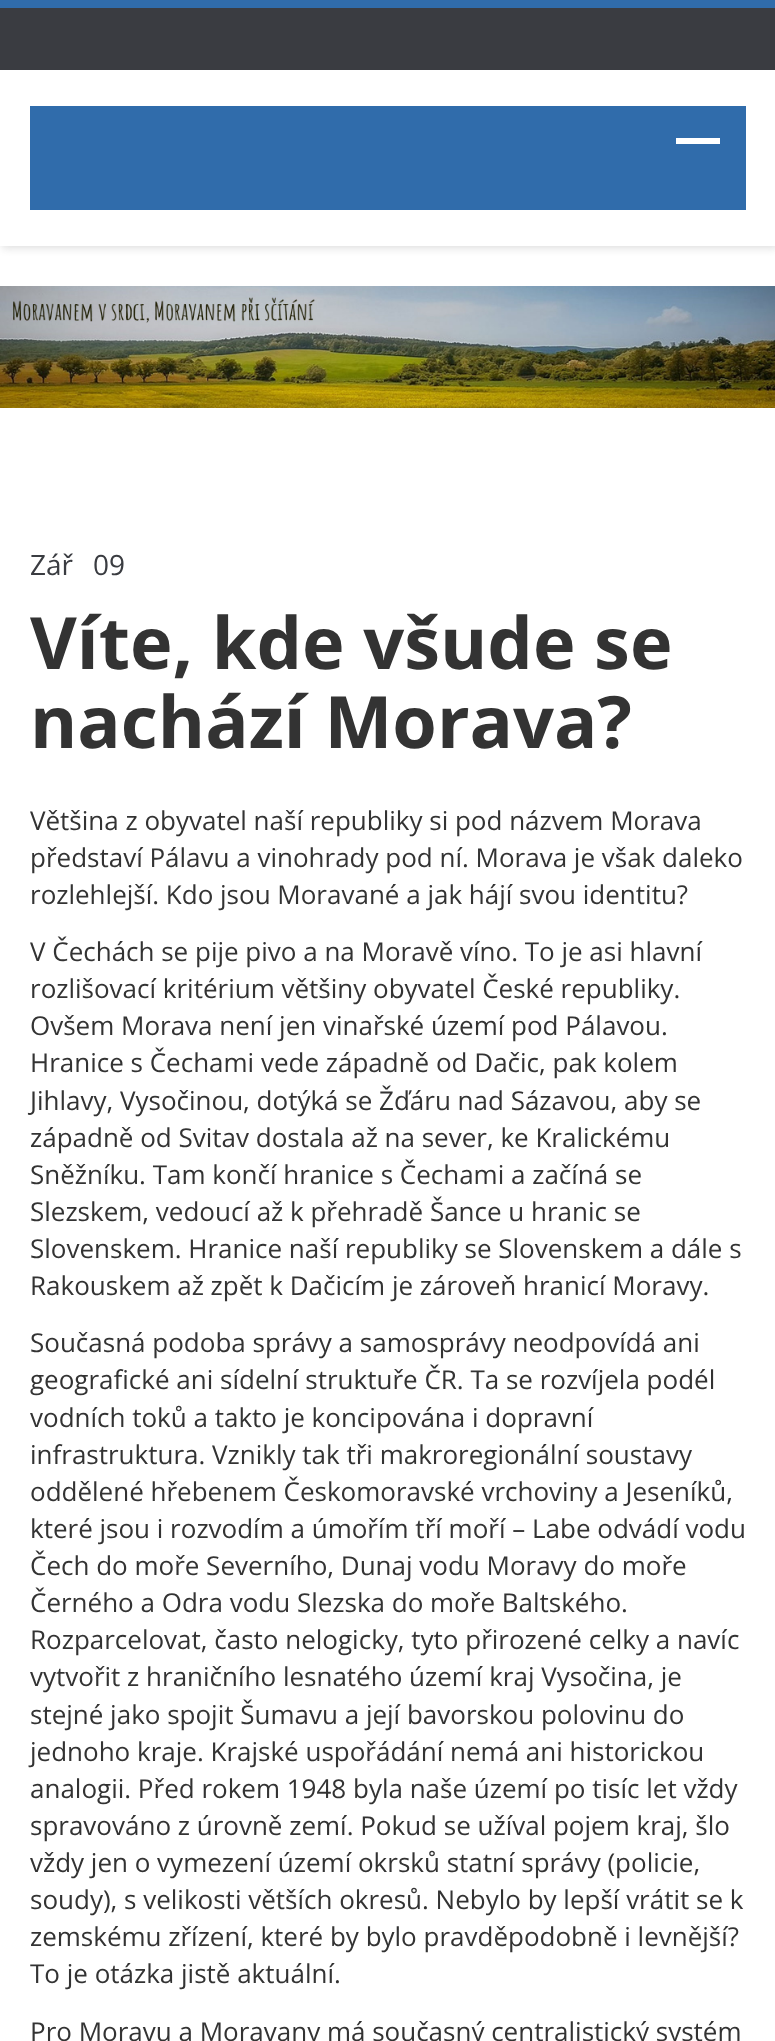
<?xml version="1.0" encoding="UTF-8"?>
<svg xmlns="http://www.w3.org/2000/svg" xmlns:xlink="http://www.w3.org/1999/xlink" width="775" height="2041">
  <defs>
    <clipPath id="clip1"><rect x="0" y="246" width="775" height="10" /></clipPath>
  </defs>
  <rect width="100%" height="100%" fill="#ffffff" />
  <g clip-path="url(#clip1)">
    <rect x="2" y="2" width="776" height="246" fill="#dddddd" filter="blur(4px)" />
  </g>
  <rect y="8" width="775" height="62" fill="#3a3c41" />
  <rect width="775" height="8" fill="#306cab" />
  <rect x="30" y="106" width="716" height="104" fill="#306cab" />
  <rect x="676" y="138" width="44" height="6" fill="#ffffff" />
  <image x="0" y="286" width="775" height="122" xlink:href="image1.png" />
  <text x="30" y="575" style="font-family: Open Sans; font-size: 28px; fill: #3a3c41">Zář</text>
  <text x="93" y="575" style="font-family: Open Sans; font-size: 28px; fill: #3a3c41">09</text>
  <text x="30" y="669" style="font-family: Open Sans; font-size: 72px; font-weight: bold; fill: #333333">Víte, kde všude se</text>
  <text x="30" y="748" style="font-family: Open Sans; font-size: 72px; font-weight: bold; fill: #333333">nachází Morava?</text>
  <text x="30" y="830" style="font-family: Open Sans; font-size: 26px; fill: #333333">Většina z obyvatel naší republiky si pod názvem Morava</text>
  <text x="30" y="867" style="font-family: Open Sans; font-size: 26px; fill: #333333">představí Pálavu a vinohrady pod ní. Morava je však daleko</text>
  <text x="30" y="904" style="font-family: Open Sans; font-size: 26px; fill: #333333">rozlehlejší. Kdo jsou Moravané a jak hájí svou identitu?</text>
  <text x="30" y="961" style="font-family: Open Sans; font-size: 26px; fill: #333333">V Čechách se pije pivo a na Moravě víno. To je asi hlavní</text>
  <text x="30" y="998" style="font-family: Open Sans; font-size: 26px; fill: #333333">rozlišovací kritérium většiny obyvatel České republiky.</text>
  <text x="30" y="1035" style="font-family: Open Sans; font-size: 26px; fill: #333333">Ovšem Morava není jen vinařské území pod Pálavou.</text>
  <text x="30" y="1072" style="font-family: Open Sans; font-size: 26px; fill: #333333">Hranice s Čechami vede západně od Dačic, pak kolem</text>
  <text x="30" y="1110" style="font-family: Open Sans; font-size: 26px; fill: #333333">Jihlavy, Vysočinou, dotýká se Žďáru nad Sázavou, aby se</text>
  <text x="30" y="1147" style="font-family: Open Sans; font-size: 26px; fill: #333333">západně od Svitav dostala až na sever, ke Kralickému</text>
  <text x="30" y="1184" style="font-family: Open Sans; font-size: 26px; fill: #333333">Sněžníku. Tam končí hranice s Čechami a začíná se</text>
  <text x="30" y="1221" style="font-family: Open Sans; font-size: 26px; fill: #333333">Slezskem, vedoucí až k přehradě Šance u hranic se</text>
  <text x="30" y="1258" style="font-family: Open Sans; font-size: 26px; fill: #333333">Slovenskem. Hranice naší republiky se Slovenskem a dále s</text>
  <text x="30" y="1295" style="font-family: Open Sans; font-size: 26px; fill: #333333">Rakouskem až zpět k Dačicím je zároveň hranicí Moravy.</text>
  <text x="30" y="1352" style="font-family: Open Sans; font-size: 26px; fill: #333333">Současná podoba správy a samosprávy neodpovídá ani</text>
  <text x="30" y="1389" style="font-family: Open Sans; font-size: 26px; fill: #333333">geografické ani sídelní struktuře ČR. Ta se rozvíjela podél</text>
  <text x="30" y="1427" style="font-family: Open Sans; font-size: 26px; fill: #333333">vodních toků a takto je koncipována i dopravní</text>
  <text x="30" y="1464" style="font-family: Open Sans; font-size: 26px; fill: #333333">infrastruktura. Vznikly tak tři makroregionální soustavy</text>
  <text x="30" y="1501" style="font-family: Open Sans; font-size: 26px; fill: #333333">oddělené hřebenem Českomoravské vrchoviny a Jeseníků,</text>
  <text x="30" y="1538" style="font-family: Open Sans; font-size: 26px; fill: #333333">které jsou i rozvodím a úmořím tří moří – Labe odvádí vodu</text>
  <text x="30" y="1575" style="font-family: Open Sans; font-size: 26px; fill: #333333">Čech do moře Severního, Dunaj vodu Moravy do moře</text>
  <text x="30" y="1612" style="font-family: Open Sans; font-size: 26px; fill: #333333">Černého a Odra vodu Slezska do moře Baltského.</text>
  <text x="30" y="1649" style="font-family: Open Sans; font-size: 26px; fill: #333333">Rozparcelovat, často nelogicky, tyto přirozené celky a navíc</text>
  <text x="30" y="1686" style="font-family: Open Sans; font-size: 26px; fill: #333333">vytvořit z hraničního lesnatého území kraj Vysočina, je</text>
  <text x="30" y="1724" style="font-family: Open Sans; font-size: 26px; fill: #333333">stejné jako spojit Šumavu a její bavorskou polovinu do</text>
  <text x="30" y="1761" style="font-family: Open Sans; font-size: 26px; fill: #333333">jednoho kraje. Krajské uspořádání nemá ani historickou</text>
  <text x="30" y="1798" style="font-family: Open Sans; font-size: 26px; fill: #333333">analogii. Před rokem 1948 byla naše území po tisíc let vždy</text>
  <text x="30" y="1835" style="font-family: Open Sans; font-size: 26px; fill: #333333">spravováno z úrovně zemí. Pokud se užíval pojem kraj, šlo</text>
  <text x="30" y="1872" style="font-family: Open Sans; font-size: 26px; fill: #333333">vždy jen o vymezení území okrsků statní správy (policie,</text>
  <text x="30" y="1909" style="font-family: Open Sans; font-size: 26px; fill: #333333">soudy), s velikosti větších okresů. Nebylo by lepší vrátit se k</text>
  <text x="30" y="1946" style="font-family: Open Sans; font-size: 26px; fill: #333333">zemskému zřízení, které by bylo pravděpodobně i levnější?</text>
  <text x="30" y="1983" style="font-family: Open Sans; font-size: 26px; fill: #333333">To je otázka jistě aktuální.</text>
  <text x="30" y="2041" style="font-family: Open Sans; font-size: 26px; fill: #333333">Pro Moravu a Moravany má současný centralistický systém</text>
</svg>
